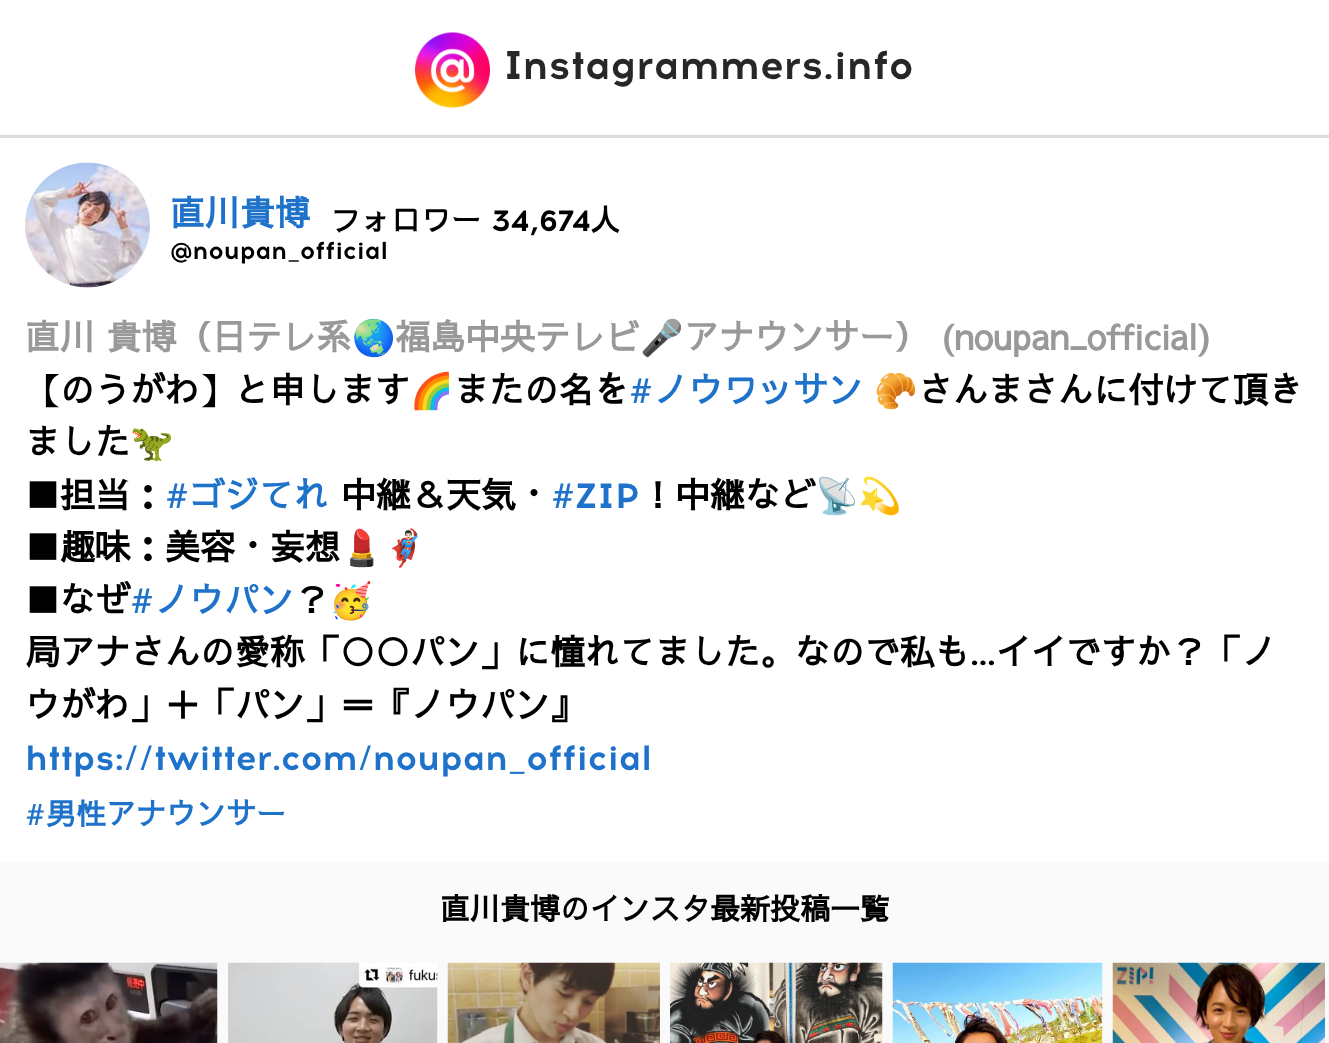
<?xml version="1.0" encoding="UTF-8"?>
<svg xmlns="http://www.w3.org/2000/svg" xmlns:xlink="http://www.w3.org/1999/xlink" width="1329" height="1043">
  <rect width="100%" height="100%" fill="#fafafa" />
  <rect width="1329" height="135" fill="#ffffff" />
  <rect y="135" width="1329" height="3" fill="#dbdbdb" />
  <image x="415" y="32" width="75" height="76" xlink:href="image1.png" />
  <rect y="138" width="1329" height="725" fill="#ffffff" />
  <image x="25" y="162" width="125" height="126" xlink:href="image2.png" />
  <rect x="217" y="1038" width="1" height="5" fill="#ffffff" />
  <image x="0" y="962" width="218" height="81" xlink:href="image3.png" />
  <rect x="228" y="1035" width="210" height="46" fill="#fafafa" filter="blur(12.5px)" />
  <rect x="437" y="1035" width="1" height="8" fill="#ffffff" />
  <image x="228" y="962" width="210" height="81" xlink:href="image4.png" />
  <image x="447" y="962" width="213" height="81" xlink:href="image5.png" />
  <rect x="670" y="1035" width="213" height="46" fill="#fafafa" filter="blur(12.5px)" />
  <rect x="882" y="1035" width="1" height="8" fill="#ffffff" />
  <image x="670" y="962" width="213" height="81" xlink:href="image6.png" />
  <rect x="893" y="1035" width="210" height="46" fill="#fafafa" filter="blur(12.5px)" />
  <rect x="1102" y="1035" width="1" height="8" fill="#ffffff" />
  <image x="892" y="962" width="211" height="81" xlink:href="image7.png" />
  <rect x="1113" y="1035" width="212" height="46" fill="#fafafa" filter="blur(12.5px)" />
  <image x="1112" y="962" width="213" height="81" xlink:href="image8.png" />
  <text x="503" y="79" style="font-family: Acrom; font-size: 40px; font-weight: bold; fill: #272727">Instagrammers.info</text>
  <text x="170" y="226" style="font-family: Sawarabi Gothic; font-size: 35px; font-weight: bold; fill: #1f72ca">直川貴博</text>
  <text x="331" y="231" style="font-family: Sawarabi Gothic; font-size: 30px; font-weight: bold; fill: #000000">フォロワー</text>
  <text x="491" y="231" style="font-family: Acrom; font-size: 30px; font-weight: bold; fill: #000000">34,674</text>
  <text x="590" y="231" style="font-family: Sawarabi Gothic; font-size: 30px; font-weight: bold; fill: #000000">人</text>
  <text x="170" y="259" style="font-family: Acrom; font-size: 24.5px; font-weight: bold; fill: #000000">@noupan_official</text>
  <text x="25" y="350" word-spacing="1" style="font-family: Sawarabi Gothic; font-size: 35px; font-weight: bold; fill: #999999">直川 貴博（日テレ系</text>
  <text x="352" y="350" style="font-family: Noto Color Emoji; font-size: 35px; font-weight: bold; fill: #999999">🌏</text>
  <text x="395" y="350" style="font-family: Sawarabi Gothic; font-size: 35px; font-weight: bold; fill: #999999">福島中央テレビ</text>
  <text x="640" y="350" style="font-family: Noto Color Emoji; font-size: 35px; font-weight: bold; fill: #999999">🎤</text>
  <text x="684" y="350" style="font-family: Sawarabi Gothic; font-size: 35px; font-weight: bold; fill: #999999">アナウンサー）</text>
  <text x="941" y="350" style="font-family: Sawarabi Gothic; font-size: 35px; font-weight: bold; fill: #999999">(noupan_official)</text>
  <text x="25" y="403" style="font-family: Sawarabi Gothic; font-size: 35px; font-weight: bold; fill: #000000">【のうがわ】と申します</text>
  <text x="410" y="403" style="font-family: Noto Color Emoji; font-size: 35px; font-weight: bold; fill: #000000">🌈</text>
  <text x="454" y="403" style="font-family: Sawarabi Gothic; font-size: 35px; font-weight: bold; fill: #000000">またの名を</text>
  <text x="629" y="403" style="font-family: Acrom; font-size: 35px; font-weight: bold; fill: #1f72ca">#</text>
  <text x="653" y="403" style="font-family: Sawarabi Gothic; font-size: 35px; font-weight: bold; fill: #1f72ca">ノウワッサン</text>
  <text x="874" y="403" style="font-family: Noto Color Emoji; font-size: 35px; font-weight: bold; fill: #000000">🥐</text>
  <text x="918" y="403" style="font-family: Sawarabi Gothic; font-size: 35px; font-weight: bold; fill: #000000">さんまさんに付けて頂き</text>
  <text x="25" y="455" style="font-family: Sawarabi Gothic; font-size: 35px; font-weight: bold; fill: #000000">ました</text>
  <text x="130" y="455" style="font-family: Noto Color Emoji; font-size: 35px; font-weight: bold; fill: #000000">🦖</text>
  <text x="25" y="508" style="font-family: Sawarabi Gothic; font-size: 35px; font-weight: bold; fill: #000000">■担当：</text>
  <text x="165" y="508" style="font-family: Acrom; font-size: 35px; font-weight: bold; fill: #1f72ca">#</text>
  <text x="189" y="508" style="font-family: Sawarabi Gothic; font-size: 35px; font-weight: bold; fill: #1f72ca">ゴジてれ</text>
  <text x="341" y="508" style="font-family: Sawarabi Gothic; font-size: 35px; font-weight: bold; fill: #000000">中継＆天気・</text>
  <text x="551" y="508" style="font-family: Acrom; font-size: 35px; font-weight: bold; fill: #1f72ca">#ZIP</text>
  <text x="640" y="508" style="font-family: Sawarabi Gothic; font-size: 35px; font-weight: bold; fill: #000000">！中継など</text>
  <text x="815" y="508" style="font-family: Noto Color Emoji; font-size: 35px; font-weight: bold; fill: #000000">📡💫</text>
  <text x="25" y="560" style="font-family: Sawarabi Gothic; font-size: 35px; font-weight: bold; fill: #000000">■趣味：美容・妄想</text>
  <text x="340" y="560" style="font-family: Noto Color Emoji; font-size: 35px; font-weight: bold; fill: #000000">💄🦸🏻‍♂️</text>
  <text x="25" y="613" style="font-family: Sawarabi Gothic; font-size: 35px; font-weight: bold; fill: #000000">■なぜ</text>
  <text x="130" y="613" style="font-family: Acrom; font-size: 35px; font-weight: bold; fill: #1f72ca">#</text>
  <text x="154" y="613" style="font-family: Sawarabi Gothic; font-size: 35px; font-weight: bold; fill: #1f72ca">ノウパン</text>
  <text x="294" y="613" style="font-family: Sawarabi Gothic; font-size: 35px; font-weight: bold; fill: #000000">？</text>
  <text x="329" y="613" style="font-family: Noto Color Emoji; font-size: 35px; font-weight: bold; fill: #000000">🥳</text>
  <text x="25" y="665" style="font-family: Sawarabi Gothic; font-size: 35px; font-weight: bold; fill: #000000">局アナさんの愛称「○○パン」に憧れてました。なので私も</text>
  <text x="970" y="665" style="font-family: Acrom; font-size: 35px; font-weight: bold; fill: #000000">…</text>
  <text x="996" y="665" style="font-family: Sawarabi Gothic; font-size: 35px; font-weight: bold; fill: #000000">イイですか？「ノ</text>
  <text x="25" y="718" style="font-family: Sawarabi Gothic; font-size: 35px; font-weight: bold; fill: #000000">ウがわ」＋「パン」＝『ノウパン』</text>
  <text x="25" y="770" style="font-family: Acrom; font-size: 35px; font-weight: bold; fill: #1f72ca">https://twitter.com/noupan_official</text>
  <text x="25" y="825" style="font-family: Acrom; font-size: 30px; font-weight: bold; fill: #1f72ca">#</text>
  <text x="46" y="825" style="font-family: Sawarabi Gothic; font-size: 30px; font-weight: bold; fill: #1f72ca">男性アナウンサー</text>
  <text x="440" y="920" style="font-family: Sawarabi Gothic; font-size: 30px; font-weight: bold; fill: #000000">直川貴博のインスタ最新投稿一覧</text>
</svg>
